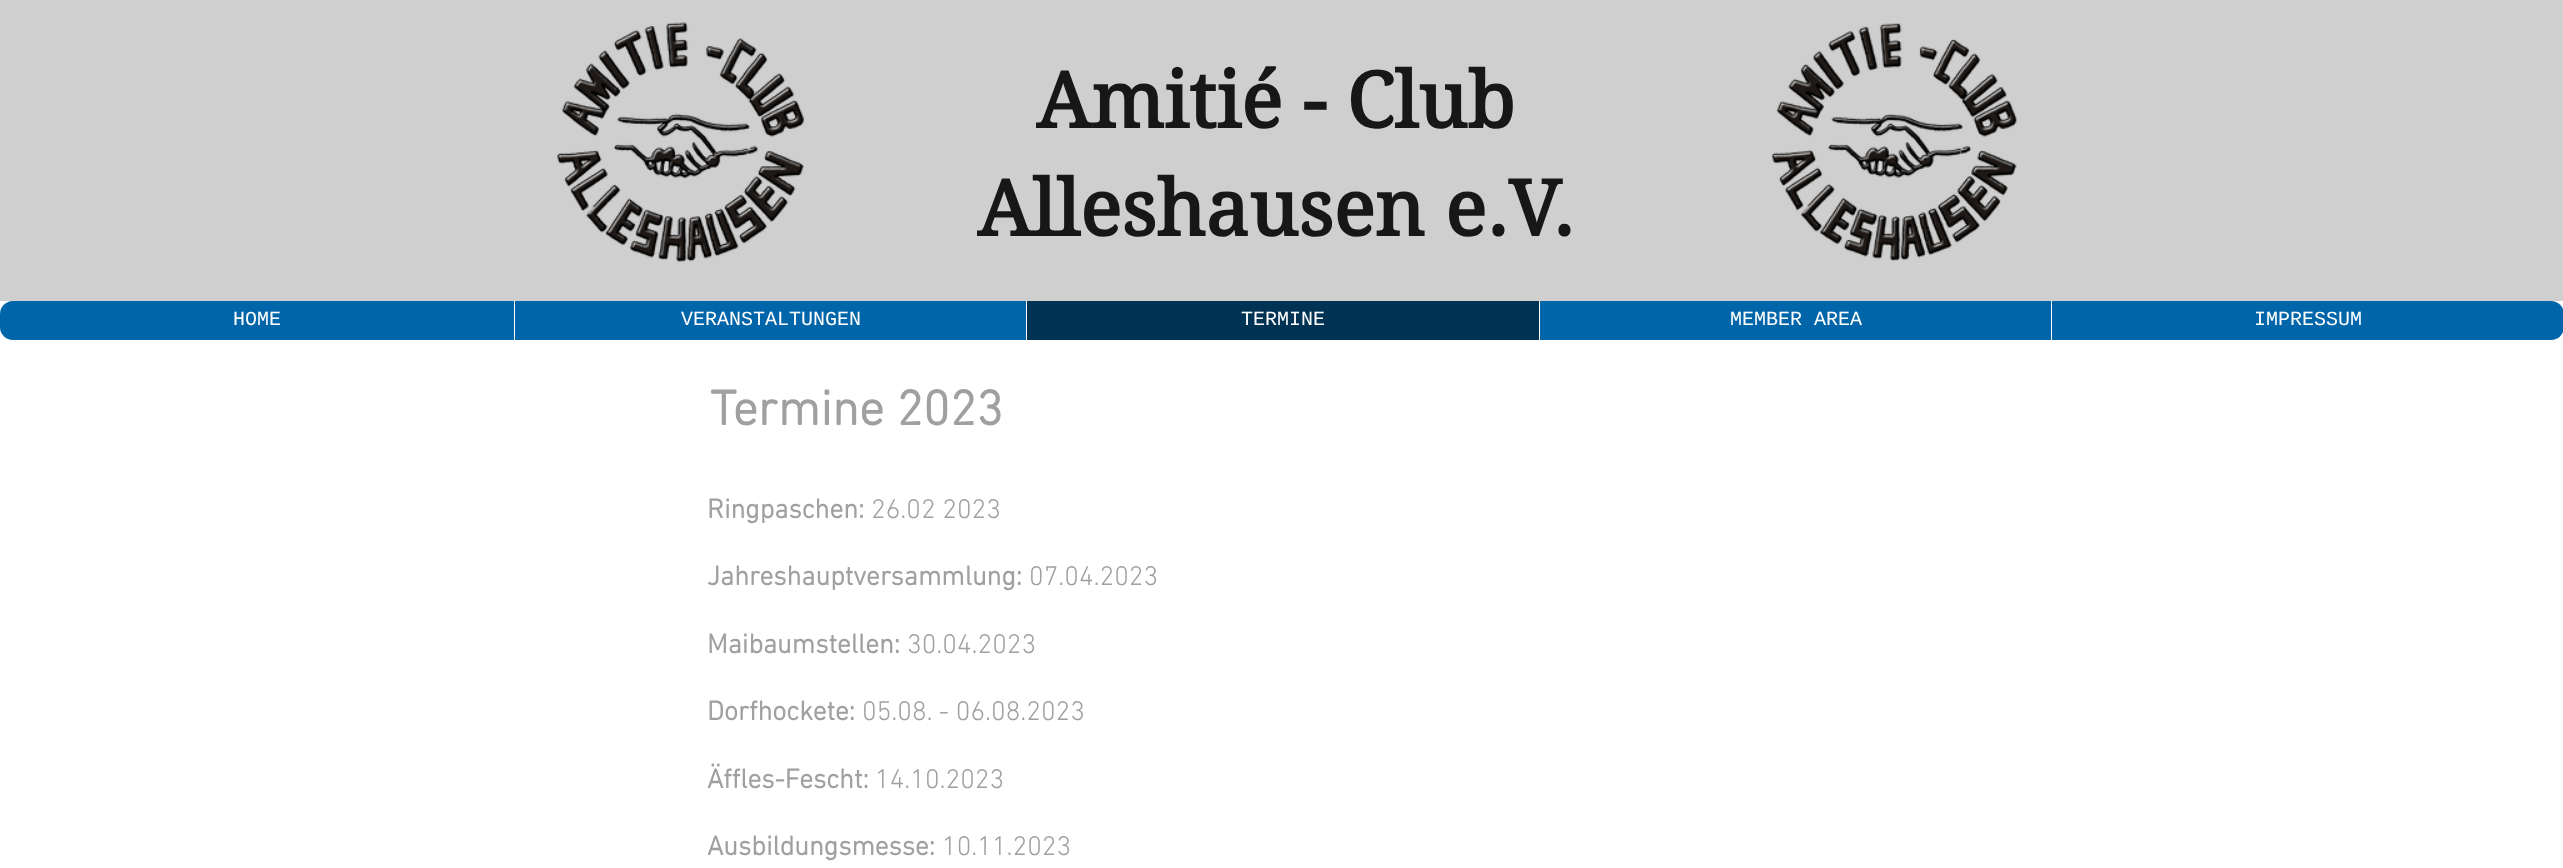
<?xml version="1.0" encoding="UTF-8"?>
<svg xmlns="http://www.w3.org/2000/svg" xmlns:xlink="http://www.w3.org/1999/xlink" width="2563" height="868">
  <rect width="100%" height="100%" fill="#ffffff" />
  <rect width="2563" height="301" fill="#cfcfcf" />
  <image x="557" y="22" width="247" height="240" xlink:href="image1.png" />
  <image x="1771" y="23" width="246" height="238" xlink:href="image2.png" />
  <rect y="301" width="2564" height="39" rx="13" fill="#0065a9" />
  <rect x="514" y="301" width="1" height="39" fill="#ffffff" />
  <rect x="1027" y="301" width="512" height="39" fill="#003254" />
  <rect x="1026" y="301" width="1" height="39" fill="#ffffff" />
  <rect x="1539" y="301" width="1" height="39" fill="#ffffff" />
  <rect x="2051" y="301" width="1" height="39" fill="#ffffff" />
  <text x="1036" y="128" style="font-family: 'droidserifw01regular'; font-size: 77.5px; font-weight: bold; fill: #171717">Amitié - Club</text>
  <text x="977" y="236" style="font-family: 'droidserifw01regular'; font-size: 77.5px; font-weight: bold; fill: #171717">Alleshausen e.V.</text>
  <text x="233" y="325" style="font-family: Liberation Mono; font-size: 20px; fill: #ffffff">HOME</text>
  <text x="681" y="325" style="font-family: Liberation Mono; font-size: 20px; fill: #ffffff">VERANSTALTUNGEN</text>
  <text x="1241" y="325" style="font-family: Liberation Mono; font-size: 20px; fill: #ffffff">TERMINE</text>
  <text x="1730" y="325" style="font-family: Liberation Mono; font-size: 20px; fill: #ffffff">MEMBER AREA</text>
  <text x="2254" y="325" style="font-family: Liberation Mono; font-size: 20px; fill: #ffffff">IMPRESSUM</text>
  <text x="710" y="425" style="font-family: 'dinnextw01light'; font-size: 50px; font-weight: bold; fill: #a0a09f">Termine 2023</text>
  <text x="707" y="518" style="font-family: 'dinnextw01light'; font-size: 27.5px; font-weight: bold; fill: #a0a09f">Ringpaschen:</text>
  <text x="871" y="518" style="font-family: 'dinnextw01light'; font-size: 27.5px; font-weight: 300; fill: #a0a09f">26.02 2023</text>
  <text x="707" y="585" style="font-family: 'dinnextw01light'; font-size: 27.5px; font-weight: bold; fill: #a0a09f">Jahreshauptversammlung:</text>
  <text x="1029" y="585" style="font-family: 'dinnextw01light'; font-size: 27.5px; font-weight: 300; fill: #a0a09f">07.04.2023</text>
  <text x="707" y="653" style="font-family: 'dinnextw01light'; font-size: 27.5px; font-weight: bold; fill: #a0a09f">Maibaumstellen:</text>
  <text x="907" y="653" style="font-family: 'dinnextw01light'; font-size: 27.5px; font-weight: 300; fill: #a0a09f">30.04.2023</text>
  <text x="707" y="720" style="font-family: 'dinnextw01light'; font-size: 27.5px; font-weight: bold; fill: #a0a09f">Dorfhockete:</text>
  <text x="862" y="720" style="font-family: 'dinnextw01light'; font-size: 27.5px; font-weight: 300; fill: #a0a09f">05.08. - 06.08.2023</text>
  <text x="707" y="788" style="font-family: 'dinnextw01light'; font-size: 27.5px; font-weight: bold; fill: #a0a09f">Äffles-Fescht:</text>
  <text x="875" y="788" style="font-family: 'dinnextw01light'; font-size: 27.5px; font-weight: 300; fill: #a0a09f">14.10.2023</text>
  <text x="707" y="855" style="font-family: 'dinnextw01light'; font-size: 27.5px; font-weight: bold; fill: #a0a09f">Ausbildungsmesse:</text>
  <text x="942" y="855" style="font-family: 'dinnextw01light'; font-size: 27.5px; font-weight: 300; fill: #a0a09f">10.11.2023</text>
</svg>
